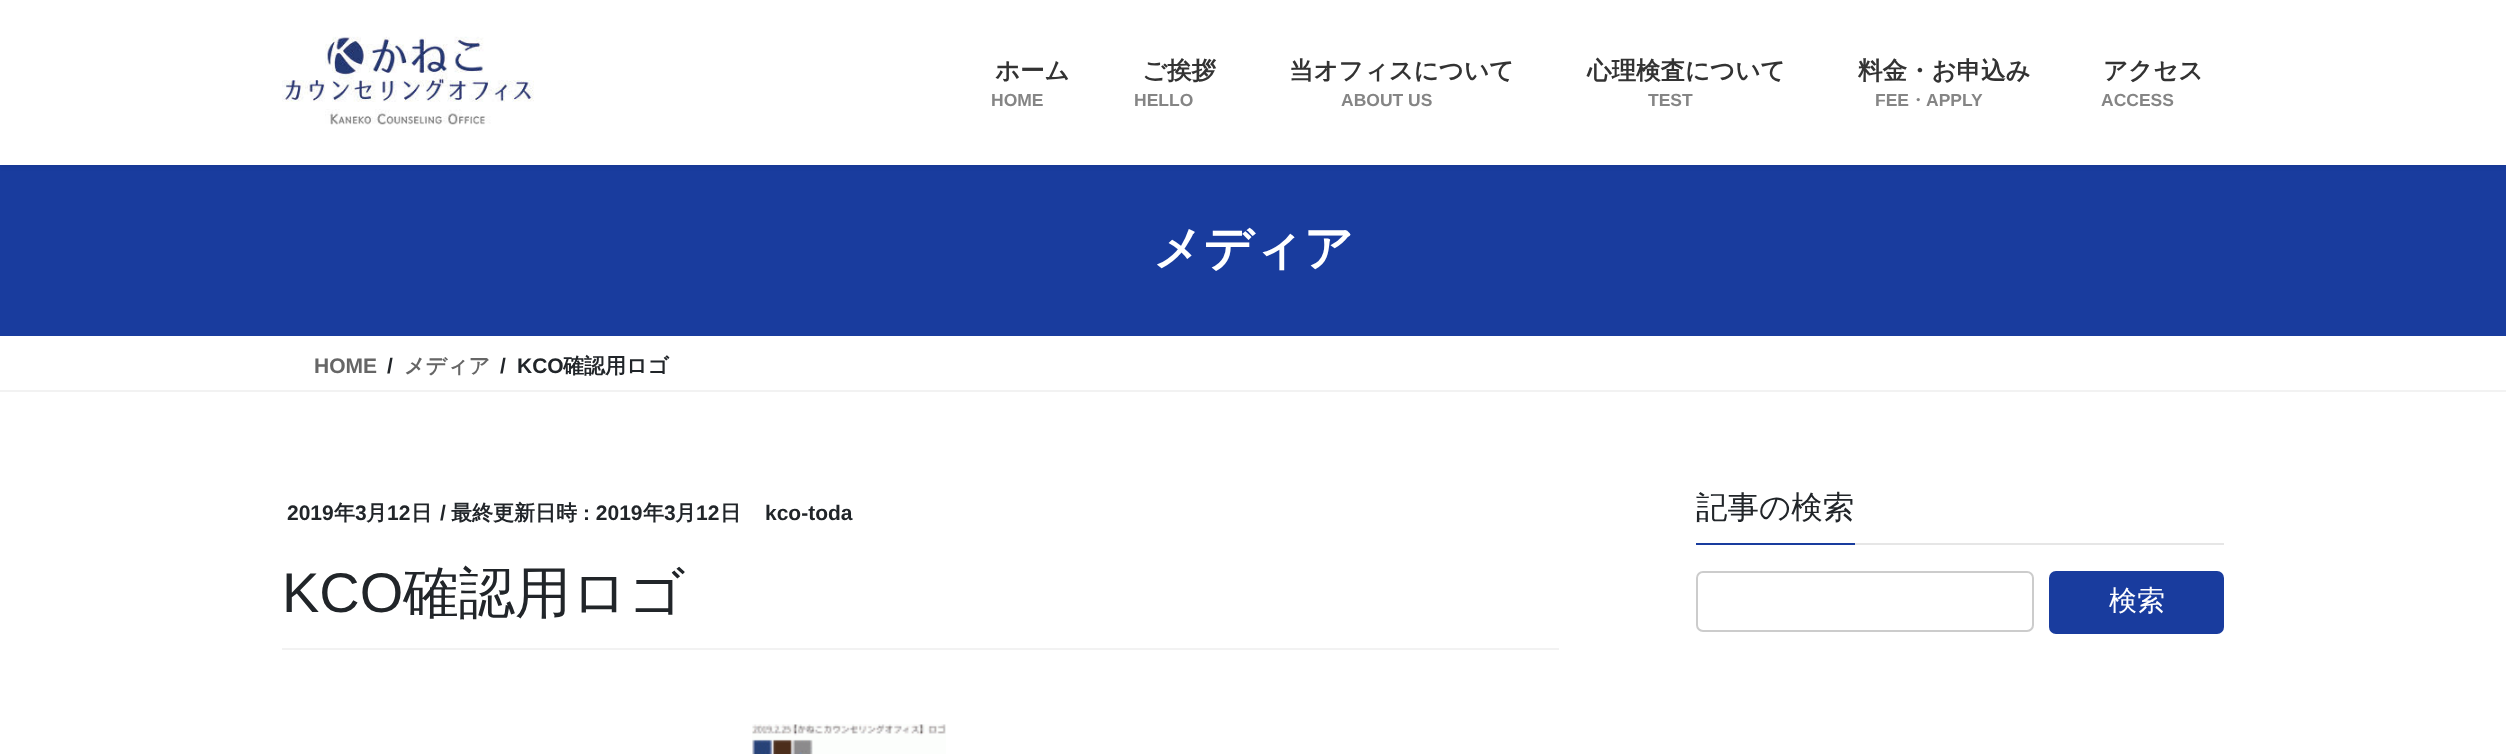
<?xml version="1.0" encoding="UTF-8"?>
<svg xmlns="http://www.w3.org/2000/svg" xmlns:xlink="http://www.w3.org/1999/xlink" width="2506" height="754">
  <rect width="100%" height="100%" fill="#ffffff" />
  <rect y="165" width="2506" height="171" fill="#193c9e" />
  <rect y="2" width="2506" height="164" fill="#000000" fill-opacity="0.1" filter="blur(2.5px)" />
  <rect width="2506" height="165" fill="#ffffff" />
  <image x="282" y="36" width="252" height="89" xlink:href="image1.png" />
  <rect y="390" width="2506" height="2" fill="#f2f2f2" />
  <rect x="282" y="648" width="1277" height="2" fill="#f2f2f2" />
  <image x="752" y="724" width="194" height="30" xlink:href="image2.png" />
  <rect x="1855" y="543" width="369" height="2" fill="#e6e6e6" />
  <rect x="1696" y="543" width="159" height="2" fill="#193c9e" />
  <rect x="1697" y="572" width="336" height="59" rx="6" fill="none" stroke="#cccccc" stroke-width="2" />
  <rect x="2049" y="571" width="175" height="63" rx="7" fill="#193c9e" />
  <text x="995" y="79" style="font-family: WenQuanYi Zen Hei; font-size: 24.5px; font-weight: bold; fill: #333333">ホーム</text>
  <text x="991" y="106" style="font-family: Liberation Sans; font-size: 17.5px; font-weight: bold; fill: #858585">HOME</text>
  <text x="1142" y="79" style="font-family: WenQuanYi Zen Hei; font-size: 24.5px; font-weight: bold; fill: #333333">ご挨拶</text>
  <text x="1134" y="106" style="font-family: Liberation Sans; font-size: 17.5px; font-weight: bold; fill: #858585">HELLO</text>
  <text x="1289" y="79" style="font-family: WenQuanYi Zen Hei; font-size: 24.5px; font-weight: bold; fill: #333333">当オフィスについて</text>
  <text x="1341" y="106" style="font-family: Liberation Sans; font-size: 17.5px; font-weight: bold; fill: #858585">ABOUT US</text>
  <text x="1587" y="79" style="font-family: WenQuanYi Zen Hei; font-size: 24.5px; font-weight: bold; fill: #333333">心理検査について</text>
  <text x="1648" y="106" style="font-family: Liberation Sans; font-size: 17.5px; font-weight: bold; fill: #858585">TEST</text>
  <text x="1858" y="79" style="font-family: WenQuanYi Zen Hei; font-size: 24.5px; font-weight: bold; fill: #333333">料金・お申込み</text>
  <text x="1875" y="106" style="font-family: Liberation Sans; font-size: 17.5px; font-weight: bold; fill: #858585">FEE</text>
  <text x="1909" y="106" style="font-family: WenQuanYi Zen Hei; font-size: 17.5px; font-weight: bold; fill: #858585">・</text>
  <text x="1926" y="106" style="font-family: Liberation Sans; font-size: 17.5px; font-weight: bold; fill: #858585">APPLY</text>
  <text x="2103" y="79" style="font-family: WenQuanYi Zen Hei; font-size: 24.5px; font-weight: bold; fill: #333333">アクセス</text>
  <text x="2101" y="106" style="font-family: Liberation Sans; font-size: 17.5px; font-weight: bold; fill: #858585">ACCESS</text>
  <text x="1153" y="265" style="font-family: WenQuanYi Zen Hei; font-size: 49px; font-weight: bold; fill: #ffffff">メディア</text>
  <text x="314" y="373" style="font-family: Liberation Sans; font-size: 21px; font-weight: bold; fill: #666666">HOME</text>
  <text x="387" y="373" style="font-family: Liberation Sans; font-size: 21px; font-weight: bold; fill: #212529">/</text>
  <text x="404" y="373" style="font-family: WenQuanYi Zen Hei; font-size: 21px; font-weight: bold; fill: #666666">メディア</text>
  <text x="500" y="373" style="font-family: Liberation Sans; font-size: 21px; font-weight: bold; fill: #212529">/</text>
  <text x="517" y="373" style="font-family: Liberation Sans; font-size: 21px; font-weight: bold; fill: #212529">KCO</text>
  <text x="563" y="373" style="font-family: WenQuanYi Zen Hei; font-size: 21px; font-weight: bold; fill: #212529">確認用ロゴ</text>
  <text x="287" y="520" style="font-family: Liberation Sans; font-size: 21px; font-weight: bold; fill: #212529">2019</text>
  <text x="334" y="520" style="font-family: WenQuanYi Zen Hei; font-size: 21px; font-weight: bold; fill: #212529">年</text>
  <text x="355" y="520" style="font-family: Liberation Sans; font-size: 21px; font-weight: bold; fill: #212529">3</text>
  <text x="366" y="520" style="font-family: WenQuanYi Zen Hei; font-size: 21px; font-weight: bold; fill: #212529">月</text>
  <text x="387" y="520" style="font-family: Liberation Sans; font-size: 21px; font-weight: bold; fill: #212529">12</text>
  <text x="411" y="520" style="font-family: WenQuanYi Zen Hei; font-size: 21px; font-weight: bold; fill: #212529">日</text>
  <text x="440" y="520" style="font-family: Liberation Sans; font-size: 21px; font-weight: bold; fill: #212529">/</text>
  <text x="451" y="520" style="font-family: WenQuanYi Zen Hei; font-size: 21px; font-weight: bold; fill: #212529">最終更新日時</text>
  <text x="583" y="520" style="font-family: Liberation Sans; font-size: 21px; font-weight: bold; fill: #212529">: 2019</text>
  <text x="643" y="520" style="font-family: WenQuanYi Zen Hei; font-size: 21px; font-weight: bold; fill: #212529">年</text>
  <text x="664" y="520" style="font-family: Liberation Sans; font-size: 21px; font-weight: bold; fill: #212529">3</text>
  <text x="675" y="520" style="font-family: WenQuanYi Zen Hei; font-size: 21px; font-weight: bold; fill: #212529">月</text>
  <text x="696" y="520" style="font-family: Liberation Sans; font-size: 21px; font-weight: bold; fill: #212529">12</text>
  <text x="720" y="520" style="font-family: WenQuanYi Zen Hei; font-size: 21px; font-weight: bold; fill: #212529">日</text>
  <text x="765" y="520" style="font-family: Liberation Sans; font-size: 21px; font-weight: bold; fill: #212529">kco-toda</text>
  <text x="282" y="612" style="font-family: Liberation Sans; font-size: 56px; fill: #212529">KCO</text>
  <text x="403" y="612" style="font-family: WenQuanYi Zen Hei; font-size: 56px; font-weight: 500; fill: #212529">確認用ロゴ</text>
  <text x="1696" y="518" style="font-family: WenQuanYi Zen Hei; font-size: 31.5px; font-weight: 500; fill: #212529">記事の検索</text>
  <text x="2109" y="610" style="font-family: WenQuanYi Zen Hei; font-size: 28px; font-weight: 500; fill: #ffffff">検索</text>
</svg>
